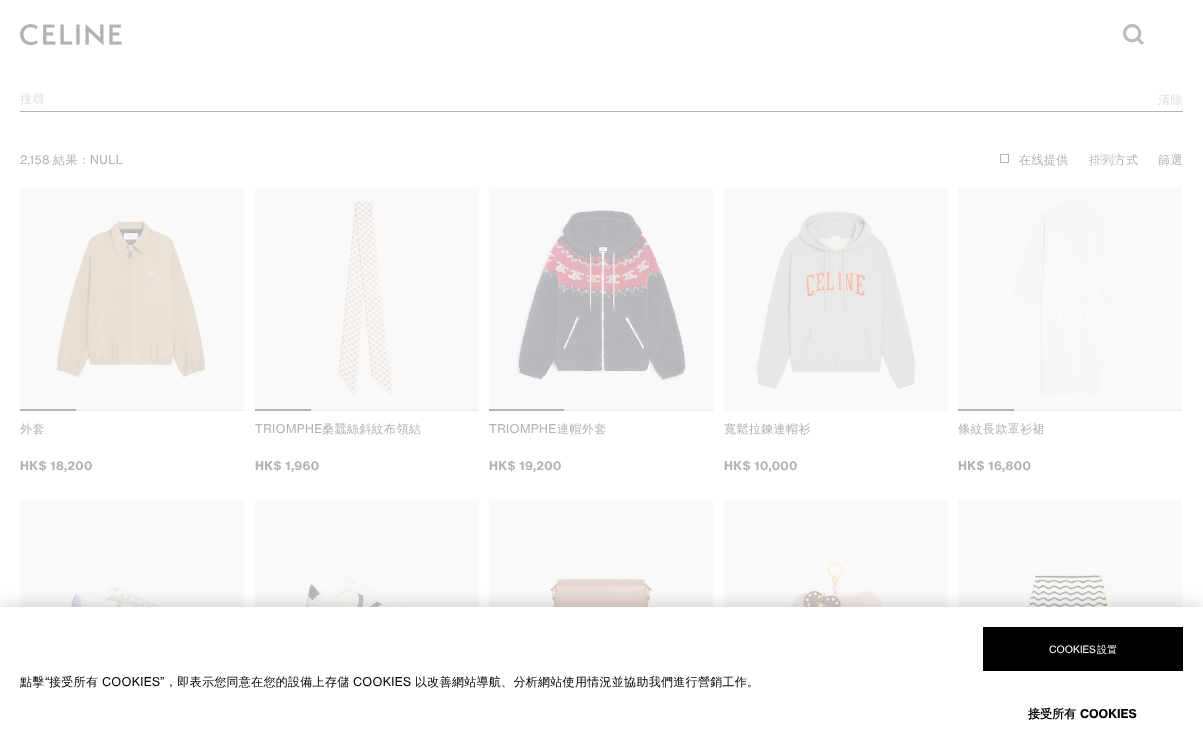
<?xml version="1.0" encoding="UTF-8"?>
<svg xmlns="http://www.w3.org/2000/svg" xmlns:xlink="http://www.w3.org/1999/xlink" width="1203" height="755">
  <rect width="100%" height="100%" fill="#ffffff" />
  <image x="20" y="24" width="102" height="22" xlink:href="image1.png" />
  <image x="1123" y="24" width="21" height="21" xlink:href="image2.png" />
  <rect x="20" y="111" width="1163" height="1" fill="#b3b3b3" />
  <rect x="1000.5" y="154.5" width="8" height="8" fill="none" stroke="#b3b3b3" />
  <rect x="20" y="187" width="224" height="222" fill="#f9f9f9" />
  <image x="56" y="220" width="152" height="158" xlink:href="image3.png" />
  <rect x="76" y="409" width="168" height="2" fill="#f0f0f0" />
  <rect x="20" y="409" width="56" height="2" fill="#b3b3b3" />
  <rect x="255" y="187" width="224" height="222" fill="#f9f9f9" />
  <image x="338" y="200" width="56" height="197" xlink:href="image4.png" />
  <rect x="311" y="409" width="168" height="2" fill="#f0f0f0" />
  <rect x="255" y="409" width="56" height="2" fill="#b3b3b3" />
  <rect x="489" y="187" width="224" height="222" fill="#f9f9f9" />
  <image x="516" y="210" width="170" height="172" xlink:href="image5.png" />
  <rect x="564" y="409" width="149" height="2" fill="#f0f0f0" />
  <rect x="489" y="409" width="75" height="2" fill="#b3b3b3" />
  <rect x="724" y="187" width="224" height="224" fill="#f9f9f9" />
  <image x="756" y="211" width="160" height="178" xlink:href="image6.png" />
  <rect x="958" y="187" width="224" height="222" fill="#f9f9f9" />
  <image x="1012" y="200" width="116" height="195" xlink:href="image7.png" />
  <rect x="1014" y="409" width="168" height="2" fill="#f0f0f0" />
  <rect x="958" y="409" width="56" height="2" fill="#b3b3b3" />
  <rect x="20" y="500" width="224" height="107" fill="#f9f9f9" />
  <image x="62" y="585" width="137" height="22" xlink:href="image8.png" />
  <rect x="255" y="500" width="224" height="107" fill="#f9f9f9" />
  <image x="293" y="577" width="137" height="30" xlink:href="image9.png" />
  <rect x="489" y="500" width="224" height="107" fill="#f9f9f9" />
  <image x="547" y="577" width="108" height="30" xlink:href="image10.png" />
  <rect x="724" y="500" width="224" height="107" fill="#f9f9f9" />
  <image x="780" y="561" width="102" height="46" xlink:href="image11.png" />
  <rect x="958" y="500" width="224" height="107" fill="#f9f9f9" />
  <image x="1019" y="572" width="99" height="35" xlink:href="image12.png" />
  <rect y="607" width="1203" height="148" fill="#000000" fill-opacity="0.2" filter="blur(9px)" />
  <rect y="607" width="1203" height="148" fill="#ffffff" />
  <rect x="983" y="627" width="200" height="44" fill="#000000" />
  <text x="20" y="103" style="font-family: WenQuanYi Zen Hei; font-size: 12px; font-weight: 500; letter-spacing: 0.4px; fill: #e0e0e0">搜尋</text>
  <text x="1158" y="104" style="font-family: WenQuanYi Zen Hei; font-size: 12px; font-weight: 500; letter-spacing: 0.4px; fill: #e0e0e0">清除</text>
  <text x="20" y="164" style="font-family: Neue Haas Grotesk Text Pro; font-size: 12px; letter-spacing: 0.4px; fill: #b3b3b3">2,158</text>
  <text x="53" y="164" style="font-family: WenQuanYi Zen Hei; font-size: 12px; font-weight: 500; letter-spacing: 0.4px; fill: #b3b3b3">結果：</text>
  <text x="90" y="164" style="font-family: Neue Haas Grotesk Text Pro; font-size: 12px; letter-spacing: 0.4px; fill: #b3b3b3">NULL</text>
  <text x="1019" y="164" style="font-family: WenQuanYi Zen Hei; font-size: 12px; font-weight: 500; letter-spacing: 0.4px; fill: #b3b3b3">在线提供</text>
  <text x="1089" y="164" style="font-family: WenQuanYi Zen Hei; font-size: 12px; font-weight: 500; letter-spacing: 0.4px; fill: #b3b3b3">排列方式</text>
  <text x="1094" y="164" style="font-family: WenQuanYi Zen Hei; font-size: 13px; font-weight: 500; fill: #eeeeee">建議</text>
  <text x="1158" y="164" style="font-family: WenQuanYi Zen Hei; font-size: 12px; font-weight: 500; letter-spacing: 0.4px; fill: #b3b3b3">篩選</text>
  <text x="20" y="433" style="font-family: WenQuanYi Zen Hei; font-size: 12px; font-weight: 500; letter-spacing: 0.4px; fill: #b3b3b3">外套</text>
  <text x="20" y="470" style="font-family: Neue Haas Grotesk Text Pro; font-size: 12px; font-weight: bold; letter-spacing: 0.4px; fill: #b3b3b3">HK$ 18,200</text>
  <text x="255" y="433" style="font-family: Neue Haas Grotesk Text Pro; font-size: 12px; letter-spacing: 0.4px; fill: #b3b3b3">TRIOMPHE</text>
  <text x="322" y="433" style="font-family: WenQuanYi Zen Hei; font-size: 12px; font-weight: 500; letter-spacing: 0.4px; fill: #b3b3b3">桑蠶絲斜紋布領結</text>
  <text x="255" y="470" style="font-family: Neue Haas Grotesk Text Pro; font-size: 12px; font-weight: bold; letter-spacing: 0.4px; fill: #b3b3b3">HK$ 1,960</text>
  <text x="489" y="433" style="font-family: Neue Haas Grotesk Text Pro; font-size: 12px; letter-spacing: 0.4px; fill: #b3b3b3">TRIOMPHE</text>
  <text x="557" y="433" style="font-family: WenQuanYi Zen Hei; font-size: 12px; font-weight: 500; letter-spacing: 0.4px; fill: #b3b3b3">連帽外套</text>
  <text x="489" y="470" style="font-family: Neue Haas Grotesk Text Pro; font-size: 12px; font-weight: bold; letter-spacing: 0.4px; fill: #b3b3b3">HK$ 19,200</text>
  <text x="724" y="433" style="font-family: WenQuanYi Zen Hei; font-size: 12px; font-weight: 500; letter-spacing: 0.4px; fill: #b3b3b3">寬鬆拉鍊連帽衫</text>
  <text x="724" y="470" style="font-family: Neue Haas Grotesk Text Pro; font-size: 12px; font-weight: bold; letter-spacing: 0.4px; fill: #b3b3b3">HK$ 10,000</text>
  <text x="958" y="433" style="font-family: WenQuanYi Zen Hei; font-size: 12px; font-weight: 500; letter-spacing: 0.4px; fill: #b3b3b3">條紋長款罩衫裙</text>
  <text x="958" y="470" style="font-family: Neue Haas Grotesk Text Pro; font-size: 12px; font-weight: bold; letter-spacing: 0.4px; fill: #b3b3b3">HK$ 16,800</text>
  <text x="20" y="686" style="font-family: WenQuanYi Zen Hei; font-size: 12px; font-weight: 500; letter-spacing: 0.3px; fill: #000000">點擊</text>
  <text x="45" y="686" style="font-family: Neue Haas Grotesk Text Pro; font-size: 12px; letter-spacing: 0.3px; fill: #000000">“</text>
  <text x="49" y="686" style="font-family: WenQuanYi Zen Hei; font-size: 12px; font-weight: 500; letter-spacing: 0.3px; fill: #000000">接受所有</text>
  <text x="102" y="686" style="font-family: Neue Haas Grotesk Text Pro; font-size: 12px; letter-spacing: 0.3px; fill: #000000">COOKIES”</text>
  <text x="165" y="686" style="font-family: WenQuanYi Zen Hei; font-size: 12px; font-weight: 500; letter-spacing: 0.3px; fill: #000000">，即表示您同意在您的設備上存儲</text>
  <text x="353" y="686" style="font-family: Neue Haas Grotesk Text Pro; font-size: 12px; letter-spacing: 0.3px; fill: #000000">COOKIES</text>
  <text x="415" y="686" style="font-family: WenQuanYi Zen Hei; font-size: 12px; font-weight: 500; letter-spacing: 0.3px; fill: #000000">以改善網站導航、分析網站使用情況並協助我們進行營銷工作。</text>
  <text x="1049" y="653" style="font-family: Neue Haas Grotesk Text Pro; font-size: 10px; fill: #ffffff">COOKIES</text>
  <text x="1097" y="653" style="font-family: WenQuanYi Zen Hei; font-size: 10px; font-weight: 500; fill: #ffffff">設置</text>
  <text x="1028" y="718" style="font-family: WenQuanYi Zen Hei; font-size: 12px; font-weight: bold; fill: #000000">接受所有</text>
  <text x="1080" y="718" style="font-family: Neue Haas Grotesk Text Pro; font-size: 12px; font-weight: bold; fill: #000000">COOKIES</text>
</svg>
